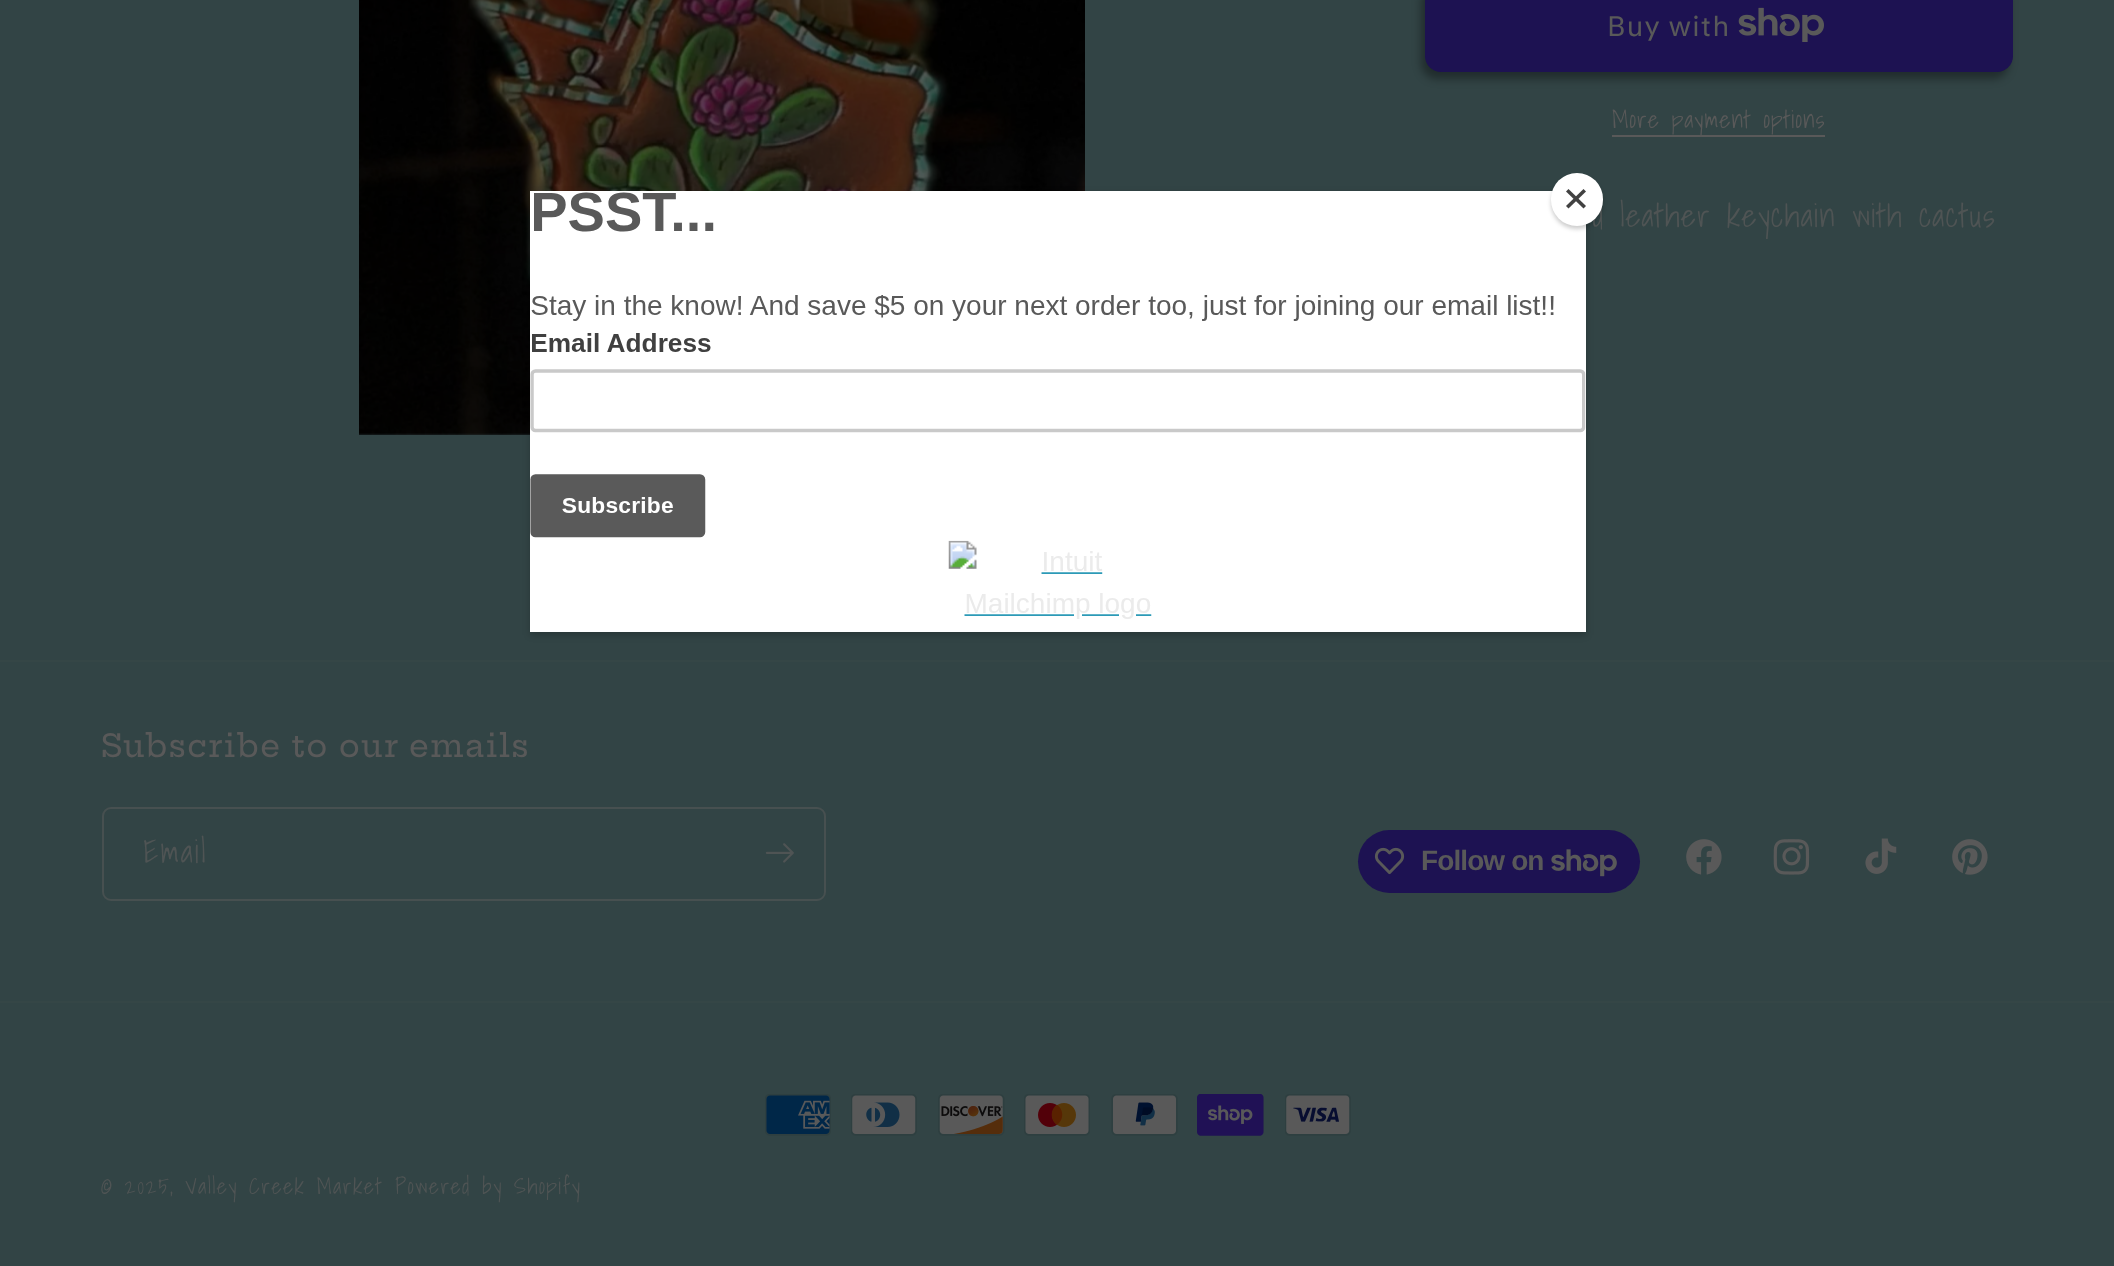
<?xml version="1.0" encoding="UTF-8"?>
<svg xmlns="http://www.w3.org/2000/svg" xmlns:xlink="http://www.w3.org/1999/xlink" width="2114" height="1266">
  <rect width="100%" height="100%" fill="#324445" />
  <image x="359" y="0" width="726" height="435" xlink:href="image1.png" />
  <rect x="1421" y="-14" width="588" height="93" rx="16" fill="#000000" fill-opacity="0.35" filter="blur(4.5px)" />
  <rect x="1425" y="-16" width="588" height="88" rx="16" fill="#1d1252" />
  <image x="1738" y="7" width="86" height="35" xlink:href="image2.png" />
  <rect x="1612" y="135" width="213" height="2" fill="#595959" />
  <rect x="530" y="194" width="1056" height="441" fill="#000000" fill-opacity="0.2" filter="blur(3.5px)" />
  <image x="530" y="191" width="1056" height="441" xlink:href="image3.png" />
  <rect x="1551" y="177" width="52" height="52" rx="26" fill="#000000" fill-opacity="0.2" filter="blur(2px)" />
  <rect y="660" width="2114" height="2" fill="#354646" />
  <rect x="103" y="808" width="722" height="92" rx="8" fill="none" stroke="#475050" stroke-width="2" />
  <image x="765" y="843" width="29" height="20" xlink:href="image4.png" />
  <rect x="1358" y="830" width="282" height="63" rx="31.5" fill="#1d1252" />
  <image x="1374" y="847" width="31" height="28" xlink:href="image5.png" />
  <image x="1551" y="849" width="66" height="28" xlink:href="image6.png" />
  <image x="1686" y="839" width="36" height="36" xlink:href="image7.png" />
  <image x="1773" y="839" width="37" height="36" xlink:href="image8.png" />
  <image x="1865" y="838" width="32" height="36" xlink:href="image9.png" />
  <image x="1952" y="839" width="36" height="36" xlink:href="image10.png" />
  <rect y="1001" width="2114" height="2" fill="#354646" />
  <image x="765" y="1094" width="66" height="42" xlink:href="image11.png" />
  <image x="851" y="1094" width="66" height="42" xlink:href="image12.png" />
  <image x="938" y="1094" width="67" height="42" xlink:href="image13.png" />
  <image x="1024" y="1094" width="66" height="42" xlink:href="image14.png" />
  <image x="1111" y="1094" width="67" height="42" xlink:href="image15.png" />
  <image x="1197" y="1094" width="67" height="42" xlink:href="image16.png" />
  <image x="1285" y="1094" width="66" height="42" xlink:href="image17.png" />
  <text x="1607" y="36" style="font-family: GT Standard; font-size: 28px; letter-spacing: 1.2px; fill: #595959">Buy with</text>
  <text x="1612" y="128" style="font-family: Shadows Into Light; font-size: 24.25px; letter-spacing: 1px; fill: #595959">More payment options</text>
  <text x="1593" y="227" style="font-family: Shadows Into Light; font-size: 32.25px; letter-spacing: 1.2px; fill: #4f5454">d leather keychain with cactus</text>
  <rect x="1551" y="173" width="52" height="53" rx="26" fill="#ffffff" />
  <path d="M 1583.5 189 l 2.5 2.5 l -17.5 17 l -2.5 -2.5 z" fill="#414141" />
  <path d="M 1566 191.5 l 2.5 -2.5 l 17.5 17 l -2.5 2.5 z" fill="#414141" />
  <text x="101" y="757" style="font-family: Hepta Slab; font-size: 31.5px; font-weight: 500; letter-spacing: 1.05px; fill: #595959">Subscribe to our emails</text>
  <text x="143" y="863" style="font-family: Shadows Into Light; font-size: 32.25px; letter-spacing: 2px; fill: #4f5454">Email</text>
  <text x="1421" y="870" style="font-family: Liberation Sans; font-size: 28px; font-weight: bold; letter-spacing: -0.9px; fill: #595959">Follow on</text>
  <text x="101" y="1194" style="font-family: Shadows Into Light; font-size: 22.1px; letter-spacing: 1.4px; fill: #4f5454">© 2025, Valley Creek Market</text>
  <text x="395" y="1194" style="font-family: Shadows Into Light; font-size: 22.1px; letter-spacing: 1.4px; fill: #4f5454">Powered by Shopify</text>
</svg>
